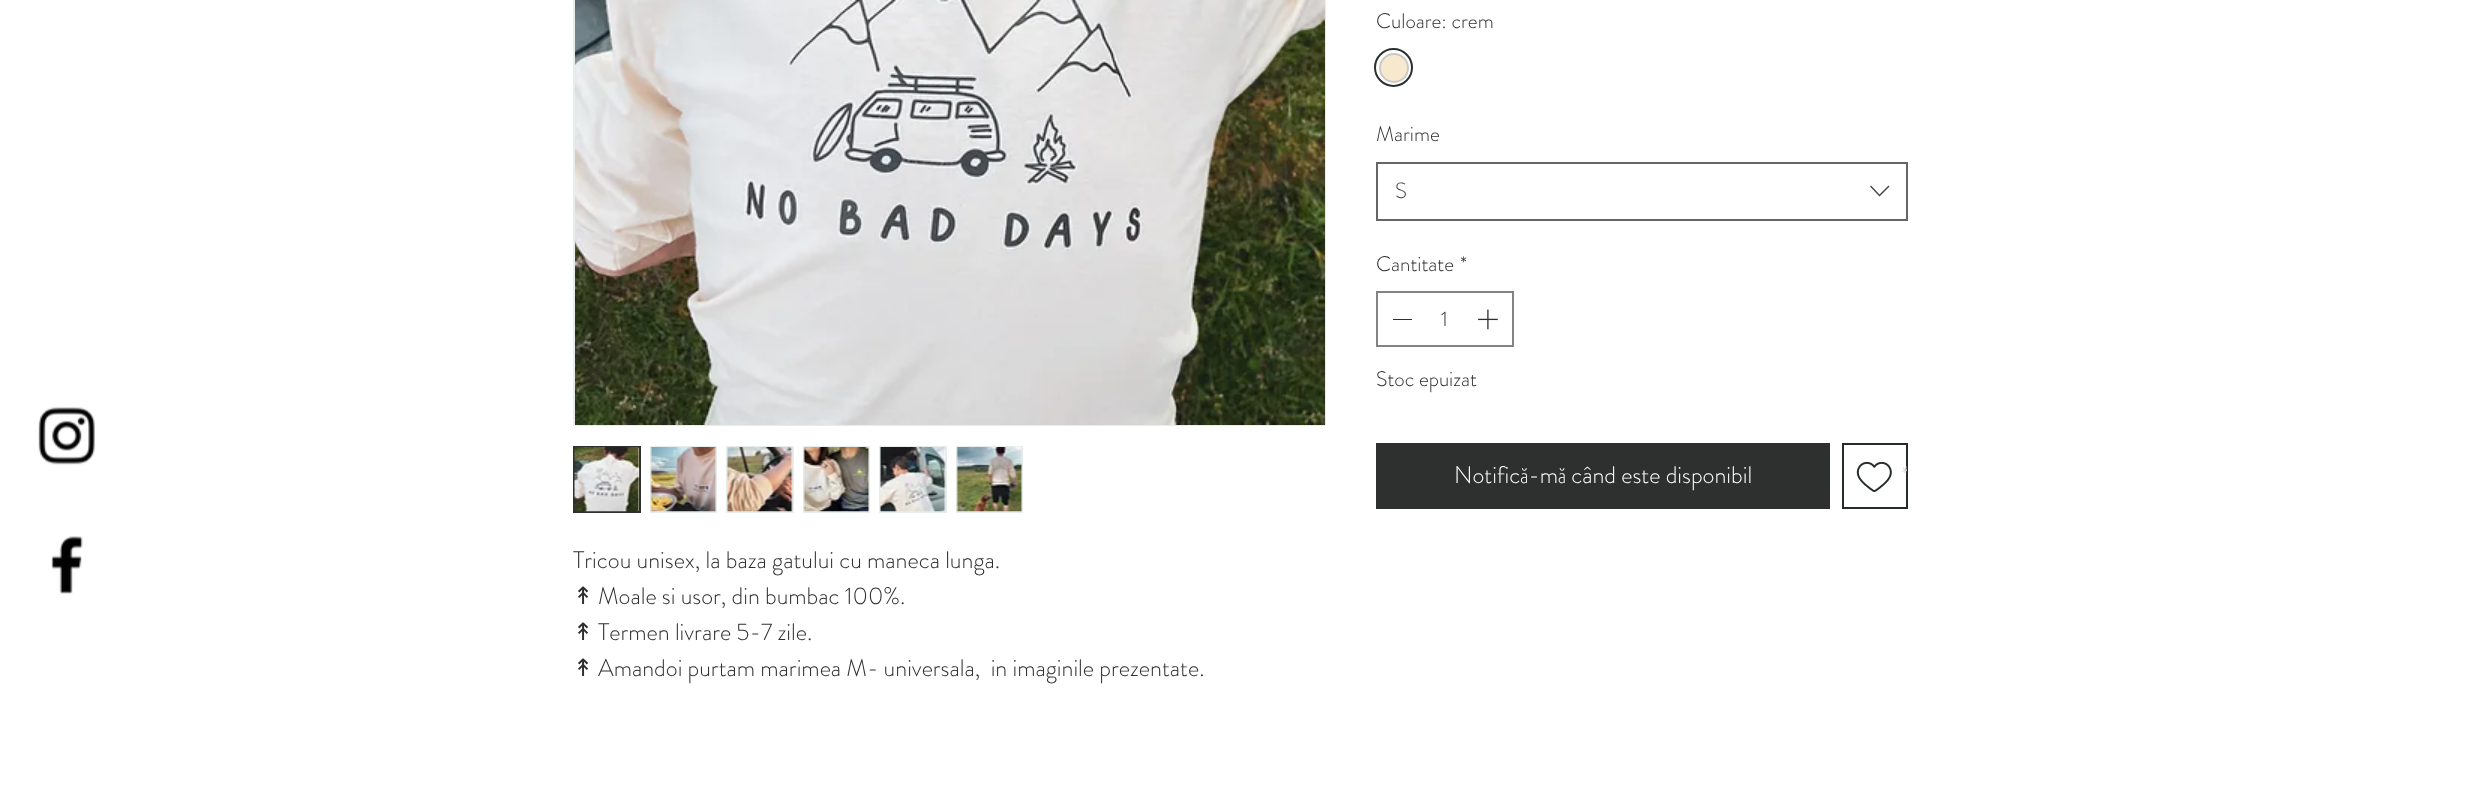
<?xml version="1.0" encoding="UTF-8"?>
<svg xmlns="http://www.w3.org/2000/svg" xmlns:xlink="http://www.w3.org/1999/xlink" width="2480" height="786">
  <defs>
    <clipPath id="clip1"><rect x="1844" y="452" width="63" height="48" /></clipPath>
  </defs>
  <rect width="100%" height="100%" fill="#ffffff" />
  <image x="38" y="407" width="57" height="58" xlink:href="image1.png" />
  <image x="51" y="536" width="32" height="58" xlink:href="image2.png" />
  <circle cx="1393.5" cy="67.5" r="18.5" fill="none" stroke="#2e302f" stroke-width="2" />
  <circle cx="1394" cy="68" r="14" fill="#f7e9cd" stroke="#c9c9c9" stroke-width="2" />
  <rect x="1377" y="163" width="530" height="57" fill="none" stroke="#666666" stroke-width="2" />
  <path d="M 1888.5 185.5 l 1 1 l -10 10 l -9.5 -10 l 1 -1 l 8.5 9 z" fill="#444444" fill-rule="evenodd" />
  <rect x="1377" y="292" width="136" height="54" fill="none" stroke="#828382" stroke-width="2" />
  <rect x="1393" y="319" width="19" height="1" fill="#2e302f" />
  <image x="1478" y="309" width="20" height="21" xlink:href="image3.png" />
  <rect x="1376" y="443" width="454" height="66" fill="#2e302f" />
  <rect x="1843" y="444" width="64" height="64" fill="none" stroke="#262d29" stroke-width="2" />
  <image x="1856" y="461" width="36" height="31" xlink:href="image4.png" />
  <rect x="574" y="-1" width="751" height="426" fill="none" stroke="#e7eeea" stroke-width="2" />
  <image x="575" y="0" width="750" height="425" xlink:href="image5.png" />
  <rect x="574" y="447" width="66" height="65" fill="none" stroke="#2e302f" stroke-width="2" />
  <image x="574" y="447" width="66" height="65" xlink:href="image6.png" />
  <rect x="651" y="447" width="65" height="65" fill="none" stroke="#e7eeea" stroke-width="2" />
  <image x="650" y="447" width="66" height="65" xlink:href="image7.png" />
  <rect x="727" y="447" width="66" height="65" fill="none" stroke="#e7eeea" stroke-width="2" />
  <image x="727" y="447" width="66" height="65" xlink:href="image8.png" />
  <rect x="804" y="447" width="65" height="65" fill="none" stroke="#e7eeea" stroke-width="2" />
  <image x="803" y="447" width="66" height="65" xlink:href="image9.png" />
  <rect x="880" y="447" width="66" height="65" fill="none" stroke="#e7eeea" stroke-width="2" />
  <image x="880" y="447" width="66" height="65" xlink:href="image10.png" />
  <rect x="957" y="447" width="65" height="65" fill="none" stroke="#e7eeea" stroke-width="2" />
  <image x="956" y="447" width="66" height="65" xlink:href="image11.png" />
  <text x="1376" y="28" style="font-family: 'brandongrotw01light'; font-size: 21px; font-weight: 300; fill: #2e302f">Culoare: crem</text>
  <text x="1376" y="141" style="font-family: 'brandongrotw01light'; font-size: 21px; font-weight: 300; fill: #2e302f">Marime</text>
  <text x="1395" y="198" style="font-family: 'brandongrotw01light'; font-size: 22px; font-weight: 300; fill: #444444">S</text>
  <text x="1376" y="271" style="font-family: 'brandongrotw01light'; font-size: 21px; font-weight: 300; fill: #2e302f">Cantitate</text>
  <text x="1460" y="271" style="font-family: 'brandongrotw01light'; font-size: 21px; font-weight: 300; fill: #2e302f">*</text>
  <text x="1441" y="326" style="font-family: 'brandongrotw01light'; font-size: 21px; font-weight: 300; fill: #2e302f">1</text>
  <text x="1376" y="386" style="font-family: 'brandongrotw01light'; font-size: 21px; font-weight: 300; fill: #2e302f">Stoc epuizat</text>
  <text x="1454" y="483" style="font-family: 'brandongrotw01light'; font-size: 24px; font-weight: 300; fill: #ffffff">Notifică-mă când este disponibil</text>
  <g clip-path="url(#clip1)">
    <text x="1898" y="483" style="font-family: 'brandongrotw01light'; font-size: 24px; font-weight: 300; font-style: italic; fill: #d2d3d2">*</text>
  </g>
  <text x="573" y="568" style="font-family: 'brandongrotw01light'; font-size: 24px; font-weight: 300; fill: #2e302f">Tricou unisex, la baza gatului cu maneca lunga.</text>
  <text x="573" y="604" style="font-family: DejaVu Sans; font-size: 24px; fill: #2e302f">↟</text>
  <text x="598" y="604" style="font-family: 'brandongrotw01light'; font-size: 24px; font-weight: 300; fill: #2e302f">Moale si usor, din bumbac 100%.</text>
  <text x="573" y="640" style="font-family: DejaVu Sans; font-size: 24px; fill: #2e302f">↟</text>
  <text x="598" y="640" style="font-family: 'brandongrotw01light'; font-size: 24px; font-weight: 300; fill: #2e302f">Termen livrare 5-7 zile.</text>
  <text x="573" y="676" style="font-family: DejaVu Sans; font-size: 24px; fill: #2e302f">↟</text>
  <text x="598" y="676" style="font-family: 'brandongrotw01light'; font-size: 24px; font-weight: 300; fill: #2e302f" xml:space="preserve">Amandoi purtam marimea M- universala,  in imaginile prezentate.</text>
</svg>
